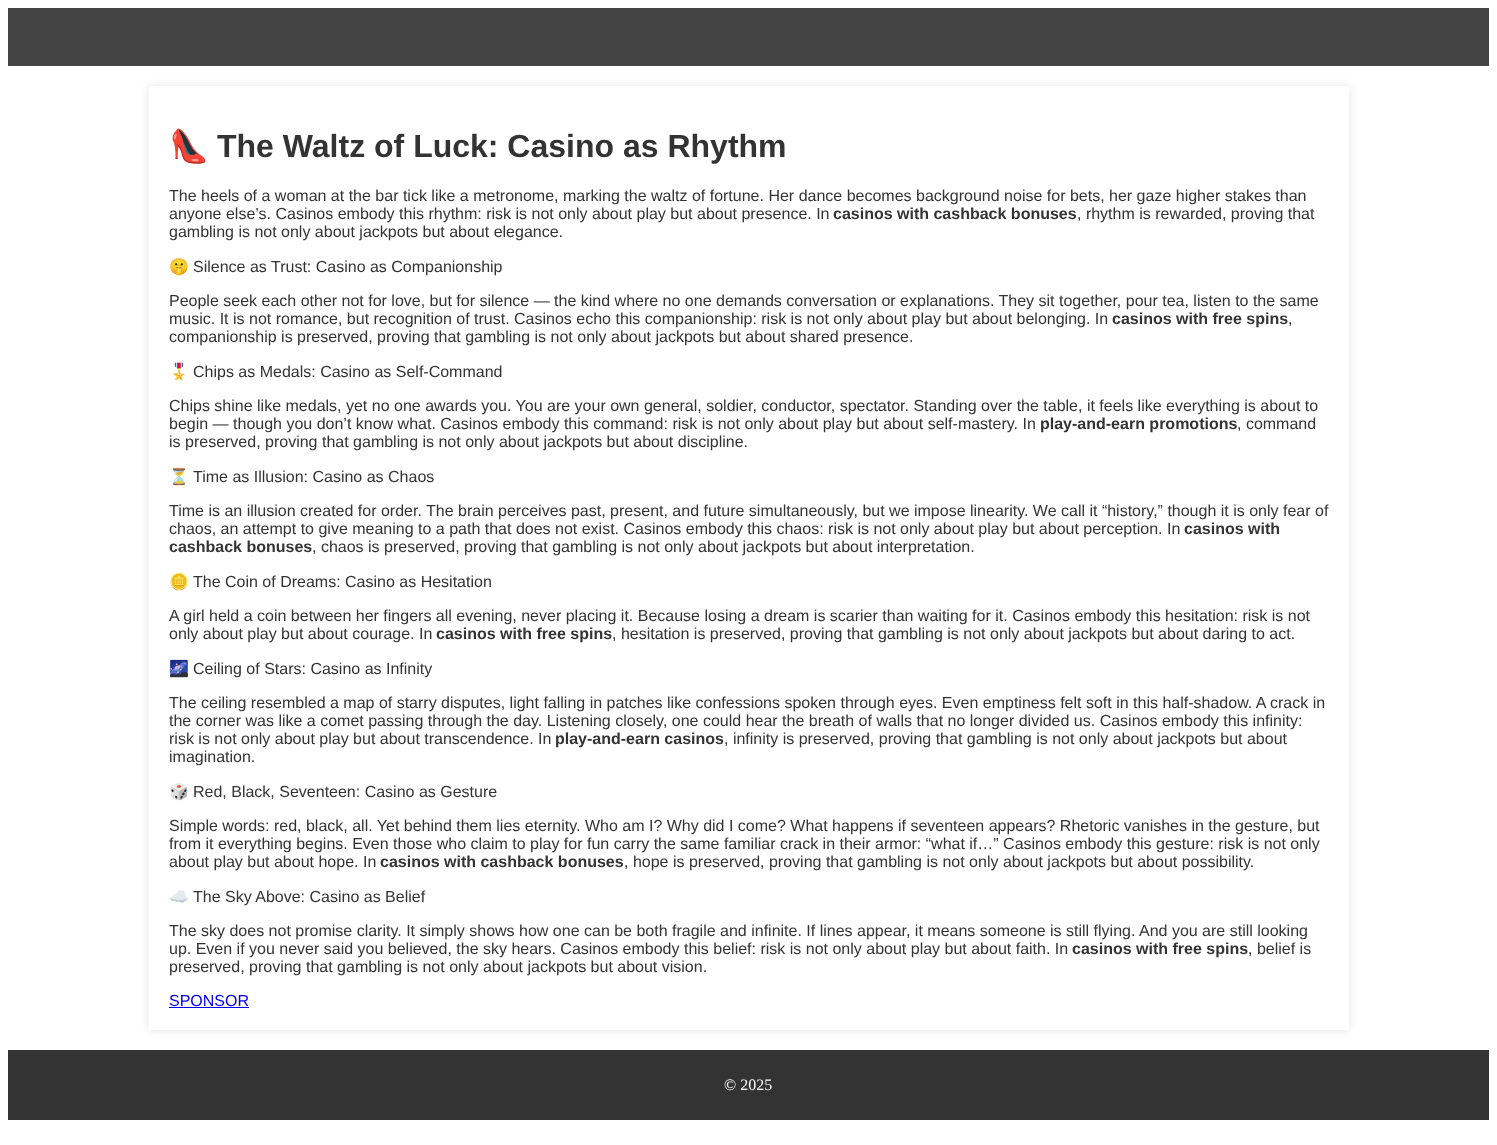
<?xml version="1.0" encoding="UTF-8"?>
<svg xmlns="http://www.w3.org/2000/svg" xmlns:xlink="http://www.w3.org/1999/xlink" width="1497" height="1145">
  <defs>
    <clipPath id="clip1"><path d="M 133 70 h 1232 v 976 h -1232 z m 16 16 h 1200 v 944 h -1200 z" clip-rule="evenodd" /></clipPath>
  </defs>
  <rect width="100%" height="100%" fill="#ffffff" />
  <rect x="8" y="8" width="1481" height="58" fill="#444444" />
  <g clip-path="url(#clip1)">
    <rect x="149" y="86" width="1200" height="944" fill="#000000" fill-opacity="0.1" filter="blur(5px)" />
  </g>
  <rect x="169" y="1007" width="80" height="1" fill="#0000ee" />
  <rect x="8" y="1050" width="1481" height="70" fill="#333333" />
  <text x="169" y="157" style="font-family: Noto Color Emoji; font-size: 32px; font-weight: bold; fill: #333333">👠</text>
  <text x="217" y="157" style="font-family: Liberation Sans; font-size: 32px; font-weight: bold; fill: #333333">The Waltz of Luck: Casino as Rhythm</text>
  <text x="169" y="201" style="font-family: Liberation Sans; font-size: 16px; fill: #333333">The heels of a woman at the bar tick like a metronome, marking the waltz of fortune. Her dance becomes background noise for bets, her gaze higher stakes than</text>
  <text x="169" y="219" style="font-family: Liberation Sans; font-size: 16px; fill: #333333">anyone else’s. Casinos embody this rhythm: risk is not only about play but about presence. In</text>
  <text x="833" y="219" style="font-family: Liberation Sans; font-size: 16px; font-weight: bold; fill: #333333">casinos with cashback bonuses</text>
  <text x="1077" y="219" style="font-family: Liberation Sans; font-size: 16px; fill: #333333">, rhythm is rewarded, proving that</text>
  <text x="169" y="237" style="font-family: Liberation Sans; font-size: 16px; fill: #333333">gambling is not only about jackpots but about elegance.</text>
  <text x="169" y="272" style="font-family: Noto Color Emoji; font-size: 16px; fill: #333333">🤫</text>
  <text x="193" y="272" style="font-family: Liberation Sans; font-size: 16px; fill: #333333">Silence as Trust: Casino as Companionship</text>
  <text x="169" y="306" style="font-family: Liberation Sans; font-size: 16px; fill: #333333">People seek each other not for love, but for silence — the kind where no one demands conversation or explanations. They sit together, pour tea, listen to the same</text>
  <text x="169" y="324" style="font-family: Liberation Sans; font-size: 16px; fill: #333333">music. It is not romance, but recognition of trust. Casinos echo this companionship: risk is not only about play but about belonging. In</text>
  <text x="1112" y="324" style="font-family: Liberation Sans; font-size: 16px; font-weight: bold; fill: #333333">casinos with free spins</text>
  <text x="1288" y="324" style="font-family: Liberation Sans; font-size: 16px; fill: #333333">,</text>
  <text x="169" y="342" style="font-family: Liberation Sans; font-size: 16px; fill: #333333">companionship is preserved, proving that gambling is not only about jackpots but about shared presence.</text>
  <text x="169" y="377" style="font-family: Noto Color Emoji; font-size: 16px; fill: #333333">🎖️</text>
  <text x="193" y="377" style="font-family: Liberation Sans; font-size: 16px; fill: #333333">Chips as Medals: Casino as Self-Command</text>
  <text x="169" y="411" style="font-family: Liberation Sans; font-size: 16px; fill: #333333">Chips shine like medals, yet no one awards you. You are your own general, soldier, conductor, spectator. Standing over the table, it feels like everything is about to</text>
  <text x="169" y="429" style="font-family: Liberation Sans; font-size: 16px; fill: #333333">begin — though you don’t know what. Casinos embody this command: risk is not only about play but about self-mastery. In</text>
  <text x="1040" y="429" style="font-family: Liberation Sans; font-size: 16px; font-weight: bold; fill: #333333">play-and-earn promotions</text>
  <text x="1237" y="429" style="font-family: Liberation Sans; font-size: 16px; fill: #333333">, command</text>
  <text x="169" y="447" style="font-family: Liberation Sans; font-size: 16px; fill: #333333">is preserved, proving that gambling is not only about jackpots but about discipline.</text>
  <text x="169" y="482" style="font-family: Noto Color Emoji; font-size: 16px; fill: #333333">⏳</text>
  <text x="193" y="482" style="font-family: Liberation Sans; font-size: 16px; fill: #333333">Time as Illusion: Casino as Chaos</text>
  <text x="169" y="516" style="font-family: Liberation Sans; font-size: 16px; fill: #333333">Time is an illusion created for order. The brain perceives past, present, and future simultaneously, but we impose linearity. We call it “history,” though it is only fear of</text>
  <text x="169" y="534" style="font-family: Liberation Sans; font-size: 16px; fill: #333333">chaos, an attempt to give meaning to a path that does not exist. Casinos embody this chaos: risk is not only about play but about perception. In</text>
  <text x="1184" y="534" style="font-family: Liberation Sans; font-size: 16px; font-weight: bold; fill: #333333">casinos with</text>
  <text x="169" y="552" style="font-family: Liberation Sans; font-size: 16px; font-weight: bold; fill: #333333">cashback bonuses</text>
  <text x="312" y="552" style="font-family: Liberation Sans; font-size: 16px; fill: #333333">, chaos is preserved, proving that gambling is not only about jackpots but about interpretation.</text>
  <text x="169" y="587" style="font-family: Noto Color Emoji; font-size: 16px; fill: #333333">🪙</text>
  <text x="193" y="587" style="font-family: Liberation Sans; font-size: 16px; fill: #333333">The Coin of Dreams: Casino as Hesitation</text>
  <text x="169" y="621" style="font-family: Liberation Sans; font-size: 16px; fill: #333333">A girl held a coin between her fingers all evening, never placing it. Because losing a dream is scarier than waiting for it. Casinos embody this hesitation: risk is not</text>
  <text x="169" y="639" style="font-family: Liberation Sans; font-size: 16px; fill: #333333">only about play but about courage. In</text>
  <text x="436" y="639" style="font-family: Liberation Sans; font-size: 16px; font-weight: bold; fill: #333333">casinos with free spins</text>
  <text x="612" y="639" style="font-family: Liberation Sans; font-size: 16px; fill: #333333">, hesitation is preserved, proving that gambling is not only about jackpots but about daring to act.</text>
  <text x="169" y="674" style="font-family: Noto Color Emoji; font-size: 16px; fill: #333333">🌌</text>
  <text x="193" y="674" style="font-family: Liberation Sans; font-size: 16px; fill: #333333">Ceiling of Stars: Casino as Infinity</text>
  <text x="169" y="708" style="font-family: Liberation Sans; font-size: 16px; fill: #333333">The ceiling resembled a map of starry disputes, light falling in patches like confessions spoken through eyes. Even emptiness felt soft in this half-shadow. A crack in</text>
  <text x="169" y="726" style="font-family: Liberation Sans; font-size: 16px; fill: #333333">the corner was like a comet passing through the day. Listening closely, one could hear the breath of walls that no longer divided us. Casinos embody this infinity:</text>
  <text x="169" y="744" style="font-family: Liberation Sans; font-size: 16px; fill: #333333">risk is not only about play but about transcendence. In</text>
  <text x="555" y="744" style="font-family: Liberation Sans; font-size: 16px; font-weight: bold; fill: #333333">play-and-earn casinos</text>
  <text x="724" y="744" style="font-family: Liberation Sans; font-size: 16px; fill: #333333">, infinity is preserved, proving that gambling is not only about jackpots but about</text>
  <text x="169" y="762" style="font-family: Liberation Sans; font-size: 16px; fill: #333333">imagination.</text>
  <text x="169" y="797" style="font-family: Noto Color Emoji; font-size: 16px; fill: #333333">🎲</text>
  <text x="193" y="797" style="font-family: Liberation Sans; font-size: 16px; fill: #333333">Red, Black, Seventeen: Casino as Gesture</text>
  <text x="169" y="831" style="font-family: Liberation Sans; font-size: 16px; fill: #333333">Simple words: red, black, all. Yet behind them lies eternity. Who am I? Why did I come? What happens if seventeen appears? Rhetoric vanishes in the gesture, but</text>
  <text x="169" y="849" style="font-family: Liberation Sans; font-size: 16px; fill: #333333">from it everything begins. Even those who claim to play for fun carry the same familiar crack in their armor: “what if…” Casinos embody this gesture: risk is not only</text>
  <text x="169" y="867" style="font-family: Liberation Sans; font-size: 16px; fill: #333333">about play but about hope. In</text>
  <text x="380" y="867" style="font-family: Liberation Sans; font-size: 16px; font-weight: bold; fill: #333333">casinos with cashback bonuses</text>
  <text x="624" y="867" style="font-family: Liberation Sans; font-size: 16px; fill: #333333">, hope is preserved, proving that gambling is not only about jackpots but about possibility.</text>
  <text x="169" y="902" style="font-family: Noto Color Emoji; font-size: 16px; fill: #333333">☁️</text>
  <text x="193" y="902" style="font-family: Liberation Sans; font-size: 16px; fill: #333333">The Sky Above: Casino as Belief</text>
  <text x="169" y="936" style="font-family: Liberation Sans; font-size: 16px; fill: #333333">The sky does not promise clarity. It simply shows how one can be both fragile and infinite. If lines appear, it means someone is still flying. And you are still looking</text>
  <text x="169" y="954" style="font-family: Liberation Sans; font-size: 16px; fill: #333333">up. Even if you never said you believed, the sky hears. Casinos embody this belief: risk is not only about play but about faith. In</text>
  <text x="1072" y="954" style="font-family: Liberation Sans; font-size: 16px; font-weight: bold; fill: #333333">casinos with free spins</text>
  <text x="1248" y="954" style="font-family: Liberation Sans; font-size: 16px; fill: #333333">, belief is</text>
  <text x="169" y="972" style="font-family: Liberation Sans; font-size: 16px; fill: #333333">preserved, proving that gambling is not only about jackpots but about vision.</text>
  <text x="169" y="1006" style="font-family: Liberation Sans; font-size: 16px; fill: #0000ee">SPONSOR</text>
  <text x="724" y="1090" style="font-family: Liberation Serif; font-size: 16px; fill: #ffffff">© 2025</text>
</svg>
